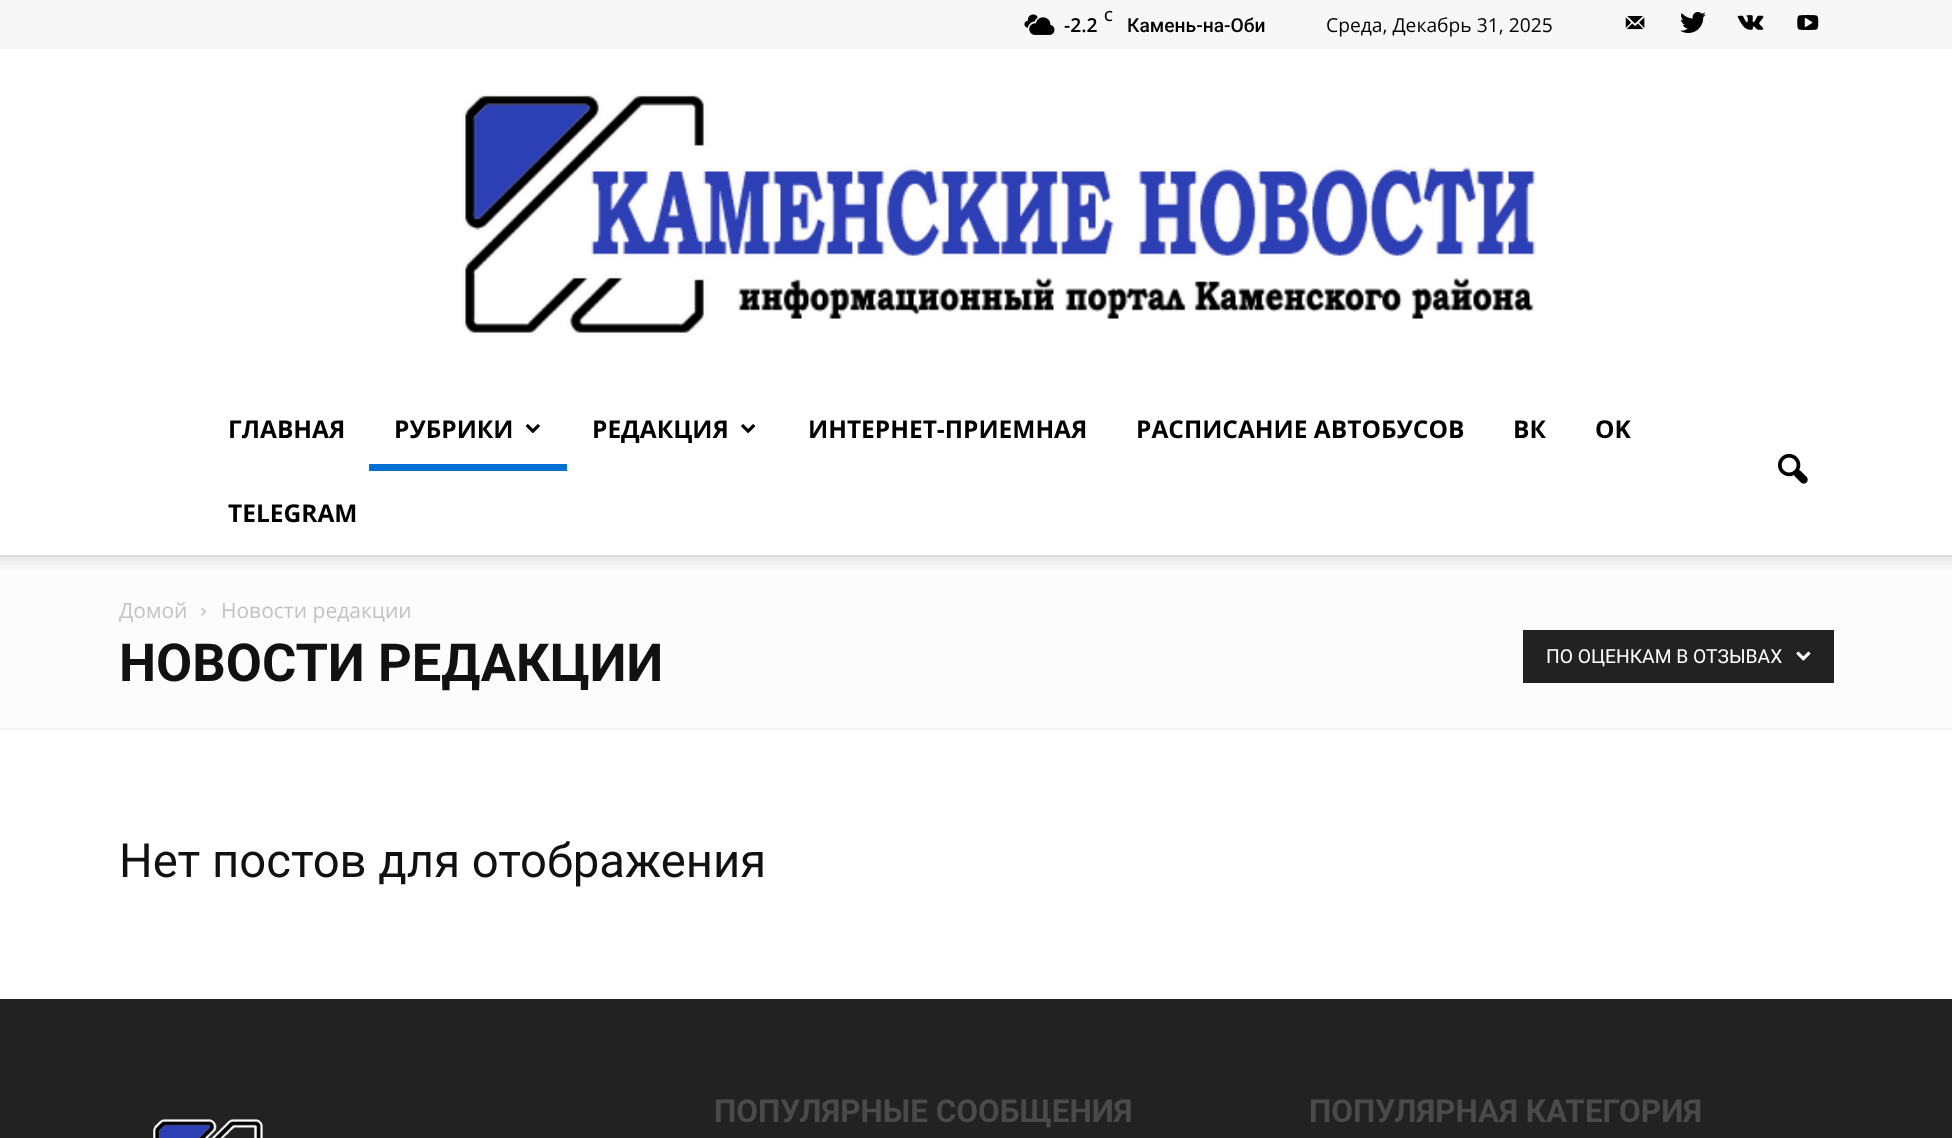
<?xml version="1.0" encoding="UTF-8"?>
<svg xmlns="http://www.w3.org/2000/svg" xmlns:xlink="http://www.w3.org/1999/xlink" width="1952" height="1138">
  <rect width="100%" height="100%" fill="#ffffff" />
  <rect y="555" width="1952" height="2" fill="#f2f2f2" />
  <rect width="1952" height="49" fill="#f7f7f7" />
  <image x="1024" y="14" width="31" height="21" xlink:href="image1.png" />
  <image x="1625" y="16" width="20" height="14" xlink:href="image2.png" />
  <image x="1680" y="12" width="26" height="21" xlink:href="image3.png" />
  <image x="1737" y="15" width="27" height="15" xlink:href="image4.png" />
  <image x="1797" y="15" width="22" height="15" xlink:href="image5.png" />
  <image x="462" y="92" width="1074" height="244" xlink:href="image6.png" />
  <image x="525" y="424" width="15" height="10" xlink:href="image7.png" />
  <rect x="369" y="464" width="198" height="7" fill="#0072d6" />
  <image x="741" y="424" width="15" height="10" xlink:href="image8.png" />
  <image x="1778" y="453" width="30" height="31" xlink:href="image9.png" />
  <rect y="557" width="1952" height="171" fill="#fcfcfc" />
  <image x="0" y="555" width="1952" height="15" xlink:href="image10.png" />
  <rect y="728" width="1952" height="2" fill="#f2f2f2" />
  <image x="201" y="607" width="5" height="9" xlink:href="image11.png" />
  <rect x="1523" y="630" width="311" height="53" fill="#222222" />
  <image x="1796" y="651" width="15" height="10" xlink:href="image12.png" />
  <rect y="999" width="1952" height="139" fill="#222222" />
  <image x="153" y="1119" width="110" height="19" xlink:href="image13.png" />
  <text x="1104" y="21" style="font-family: Open Sans; font-size: 14px; font-weight: 600; fill: #000000">C</text>
  <text x="1064" y="32" style="font-family: Open Sans; font-size: 19.25px; font-weight: 600; fill: #000000">-2.2</text>
  <text x="1127" y="32" style="font-family: Roboto; font-size: 19.25px; font-weight: 500; fill: #000000">Камень-на-Оби</text>
  <text x="1326" y="32" style="font-family: Open Sans; font-size: 19.25px; fill: #000000">Среда, Декабрь 31, 2025</text>
  <text x="228" y="438" style="font-family: Open Sans; font-size: 24.5px; font-weight: bold; fill: #000000">ГЛАВНАЯ</text>
  <text x="394" y="438" style="font-family: Open Sans; font-size: 24.5px; font-weight: bold; fill: #000000">РУБРИКИ</text>
  <text x="592" y="438" style="font-family: Open Sans; font-size: 24.5px; font-weight: bold; fill: #000000">РЕДАКЦИЯ</text>
  <text x="808" y="438" style="font-family: Open Sans; font-size: 24.5px; font-weight: bold; fill: #000000">ИНТЕРНЕТ-ПРИЕМНАЯ</text>
  <text x="1136" y="438" style="font-family: Open Sans; font-size: 24.5px; font-weight: bold; fill: #000000">РАСПИСАНИЕ АВТОБУСОВ</text>
  <text x="1513" y="438" style="font-family: Open Sans; font-size: 24.5px; font-weight: bold; fill: #000000">ВК</text>
  <text x="1595" y="438" style="font-family: Open Sans; font-size: 24.5px; font-weight: bold; fill: #000000">OK</text>
  <text x="228" y="522" style="font-family: Open Sans; font-size: 24.5px; font-weight: bold; fill: #000000">TELEGRAM</text>
  <text x="119" y="618" style="font-family: Open Sans; font-size: 21px; fill: #c3c3c3">Домой</text>
  <text x="221" y="618" style="font-family: Open Sans; font-size: 21px; fill: #c3c3c3">Новости редакции</text>
  <text x="119" y="681" style="font-family: Roboto; font-size: 52.5px; font-weight: bold; fill: #111111">НОВОСТИ РЕДАКЦИИ</text>
  <text x="1546" y="663" style="font-family: Roboto; font-size: 19.25px; fill: #ffffff">ПО ОЦЕНКАМ В ОТЗЫВАХ</text>
  <text x="119" y="877" style="font-family: Roboto; font-size: 47.25px; fill: #111111">Нет постов для отображения</text>
  <text x="714" y="1122" style="font-family: Roboto; font-size: 31.5px; font-weight: bold; fill: #4a4a4a">ПОПУЛЯРНЫЕ СООБЩЕНИЯ</text>
  <text x="1309" y="1122" style="font-family: Roboto; font-size: 31.5px; font-weight: bold; fill: #4a4a4a">ПОПУЛЯРНАЯ КАТЕГОРИЯ</text>
</svg>
